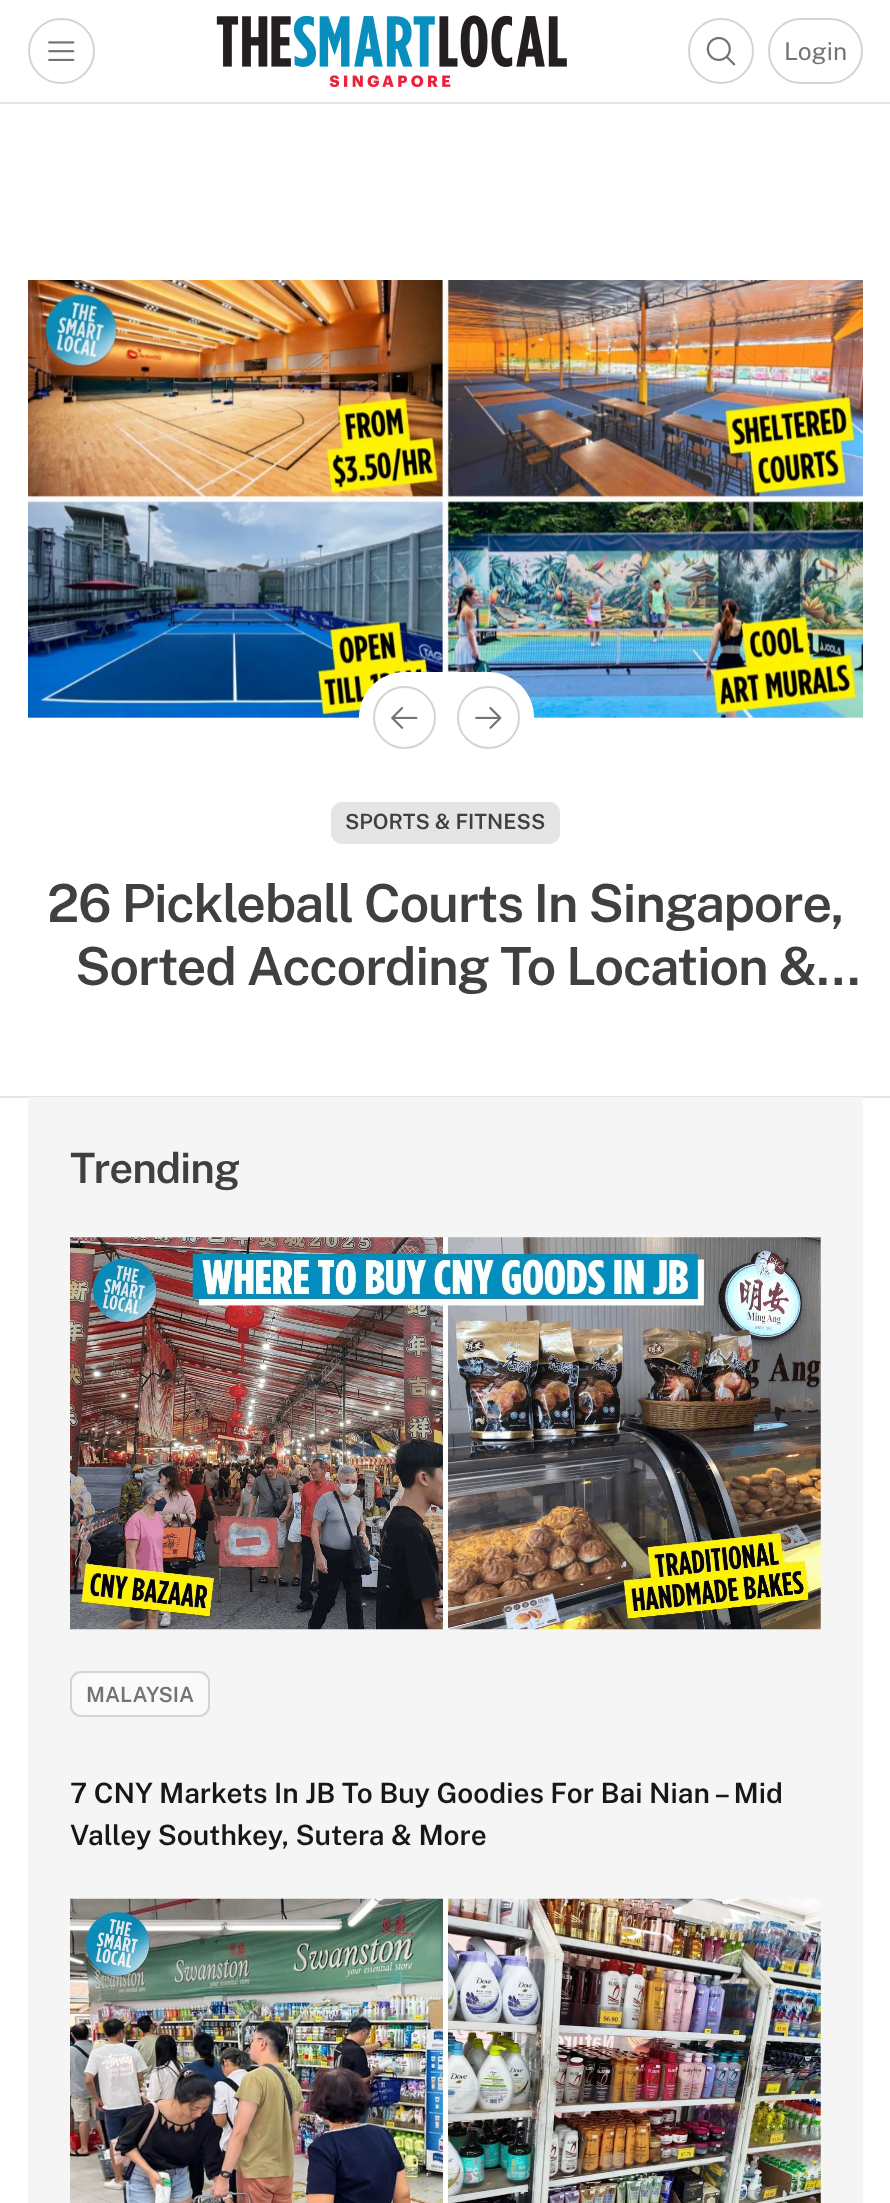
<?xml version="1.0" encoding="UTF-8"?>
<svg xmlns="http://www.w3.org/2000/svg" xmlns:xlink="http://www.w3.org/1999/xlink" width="890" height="2203">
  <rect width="100%" height="100%" fill="#ffffff" />
  <rect y="102" width="890" height="2" fill="#e5e5e5" />
  <rect x="29" y="19" width="65" height="64" rx="32" fill="none" stroke="#d4d4d4" stroke-width="2" />
  <image x="48" y="41" width="27" height="20" xlink:href="image1.png" />
  <image x="216" y="15" width="351" height="53" xlink:href="image2.png" />
  <image x="329" y="75" width="122" height="13" xlink:href="image3.png" />
  <circle cx="721" cy="51" r="32" fill="none" stroke="#d4d4d4" stroke-width="2" />
  <image x="706" y="36" width="30" height="30" xlink:href="image4.png" />
  <rect x="769" y="19" width="93" height="64" rx="32" fill="none" stroke="#d4d4d4" stroke-width="2" />
  <image x="28" y="280" width="835" height="438" xlink:href="image7.png" />
  <rect x="359" y="672" width="175" height="91" rx="45.5" fill="#ffffff" />
  <circle cx="404.5" cy="717.5" r="30.5" fill="none" stroke="#d4d4d4" stroke-width="2" />
  <image x="391" y="707" width="27" height="22" xlink:href="image5.png" />
  <circle cx="488.5" cy="717.5" r="30.5" fill="none" stroke="#d4d4d4" stroke-width="2" />
  <image x="475" y="707" width="27" height="22" xlink:href="image6.png" />
  <rect x="331" y="802" width="229" height="42" rx="11" fill="#e5e5e5" />
  <rect y="1096" width="890" height="2" fill="#e5e5e5" />
  <rect x="28" y="1097" width="835" height="1106" fill="#f5f5f5" />
  <image x="70" y="1237" width="751" height="393" xlink:href="image8.png" />
  <rect x="71" y="1672" width="138" height="44" rx="10" fill="#fafafa" stroke="#d4d4d4" stroke-width="2" />
  <image x="70" y="1898" width="751" height="305" xlink:href="image9.png" />
  <text x="784" y="60" style="font-family: 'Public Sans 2'; font-size: 24.5px; font-weight: 100; fill: #737373">Login</text>
  <text x="345" y="829" style="font-family: Public Sans; font-size: 21px; font-weight: 100; fill: #404040">SPORTS &amp; FITNESS</text>
  <text x="47" y="922" style="font-family: Public Sans; font-size: 52.5px; font-weight: 100; letter-spacing: -1.3px; fill: #404040">26 Pickleball Courts In Singapore,</text>
  <text x="75" y="985" style="font-family: Public Sans; font-size: 52.5px; font-weight: 100; letter-spacing: -1.3px; fill: #404040">Sorted According To Location &amp;…</text>
  <text x="70" y="1183" style="font-family: Public Sans; font-size: 42px; font-weight: 100; letter-spacing: -1px; fill: #404040">Trending</text>
  <text x="86" y="1702" style="font-family: Public Sans; font-size: 21px; font-weight: 100; fill: #737373">MALAYSIA</text>
  <text x="70" y="1803" style="font-family: Public Sans; font-size: 28px; font-weight: 100; fill: #171717">7 CNY Markets In JB To Buy Goodies For Bai Nian – Mid</text>
  <text x="70" y="1845" style="font-family: Public Sans; font-size: 28px; font-weight: 100; fill: #171717">Valley Southkey, Sutera &amp; More</text>
</svg>
